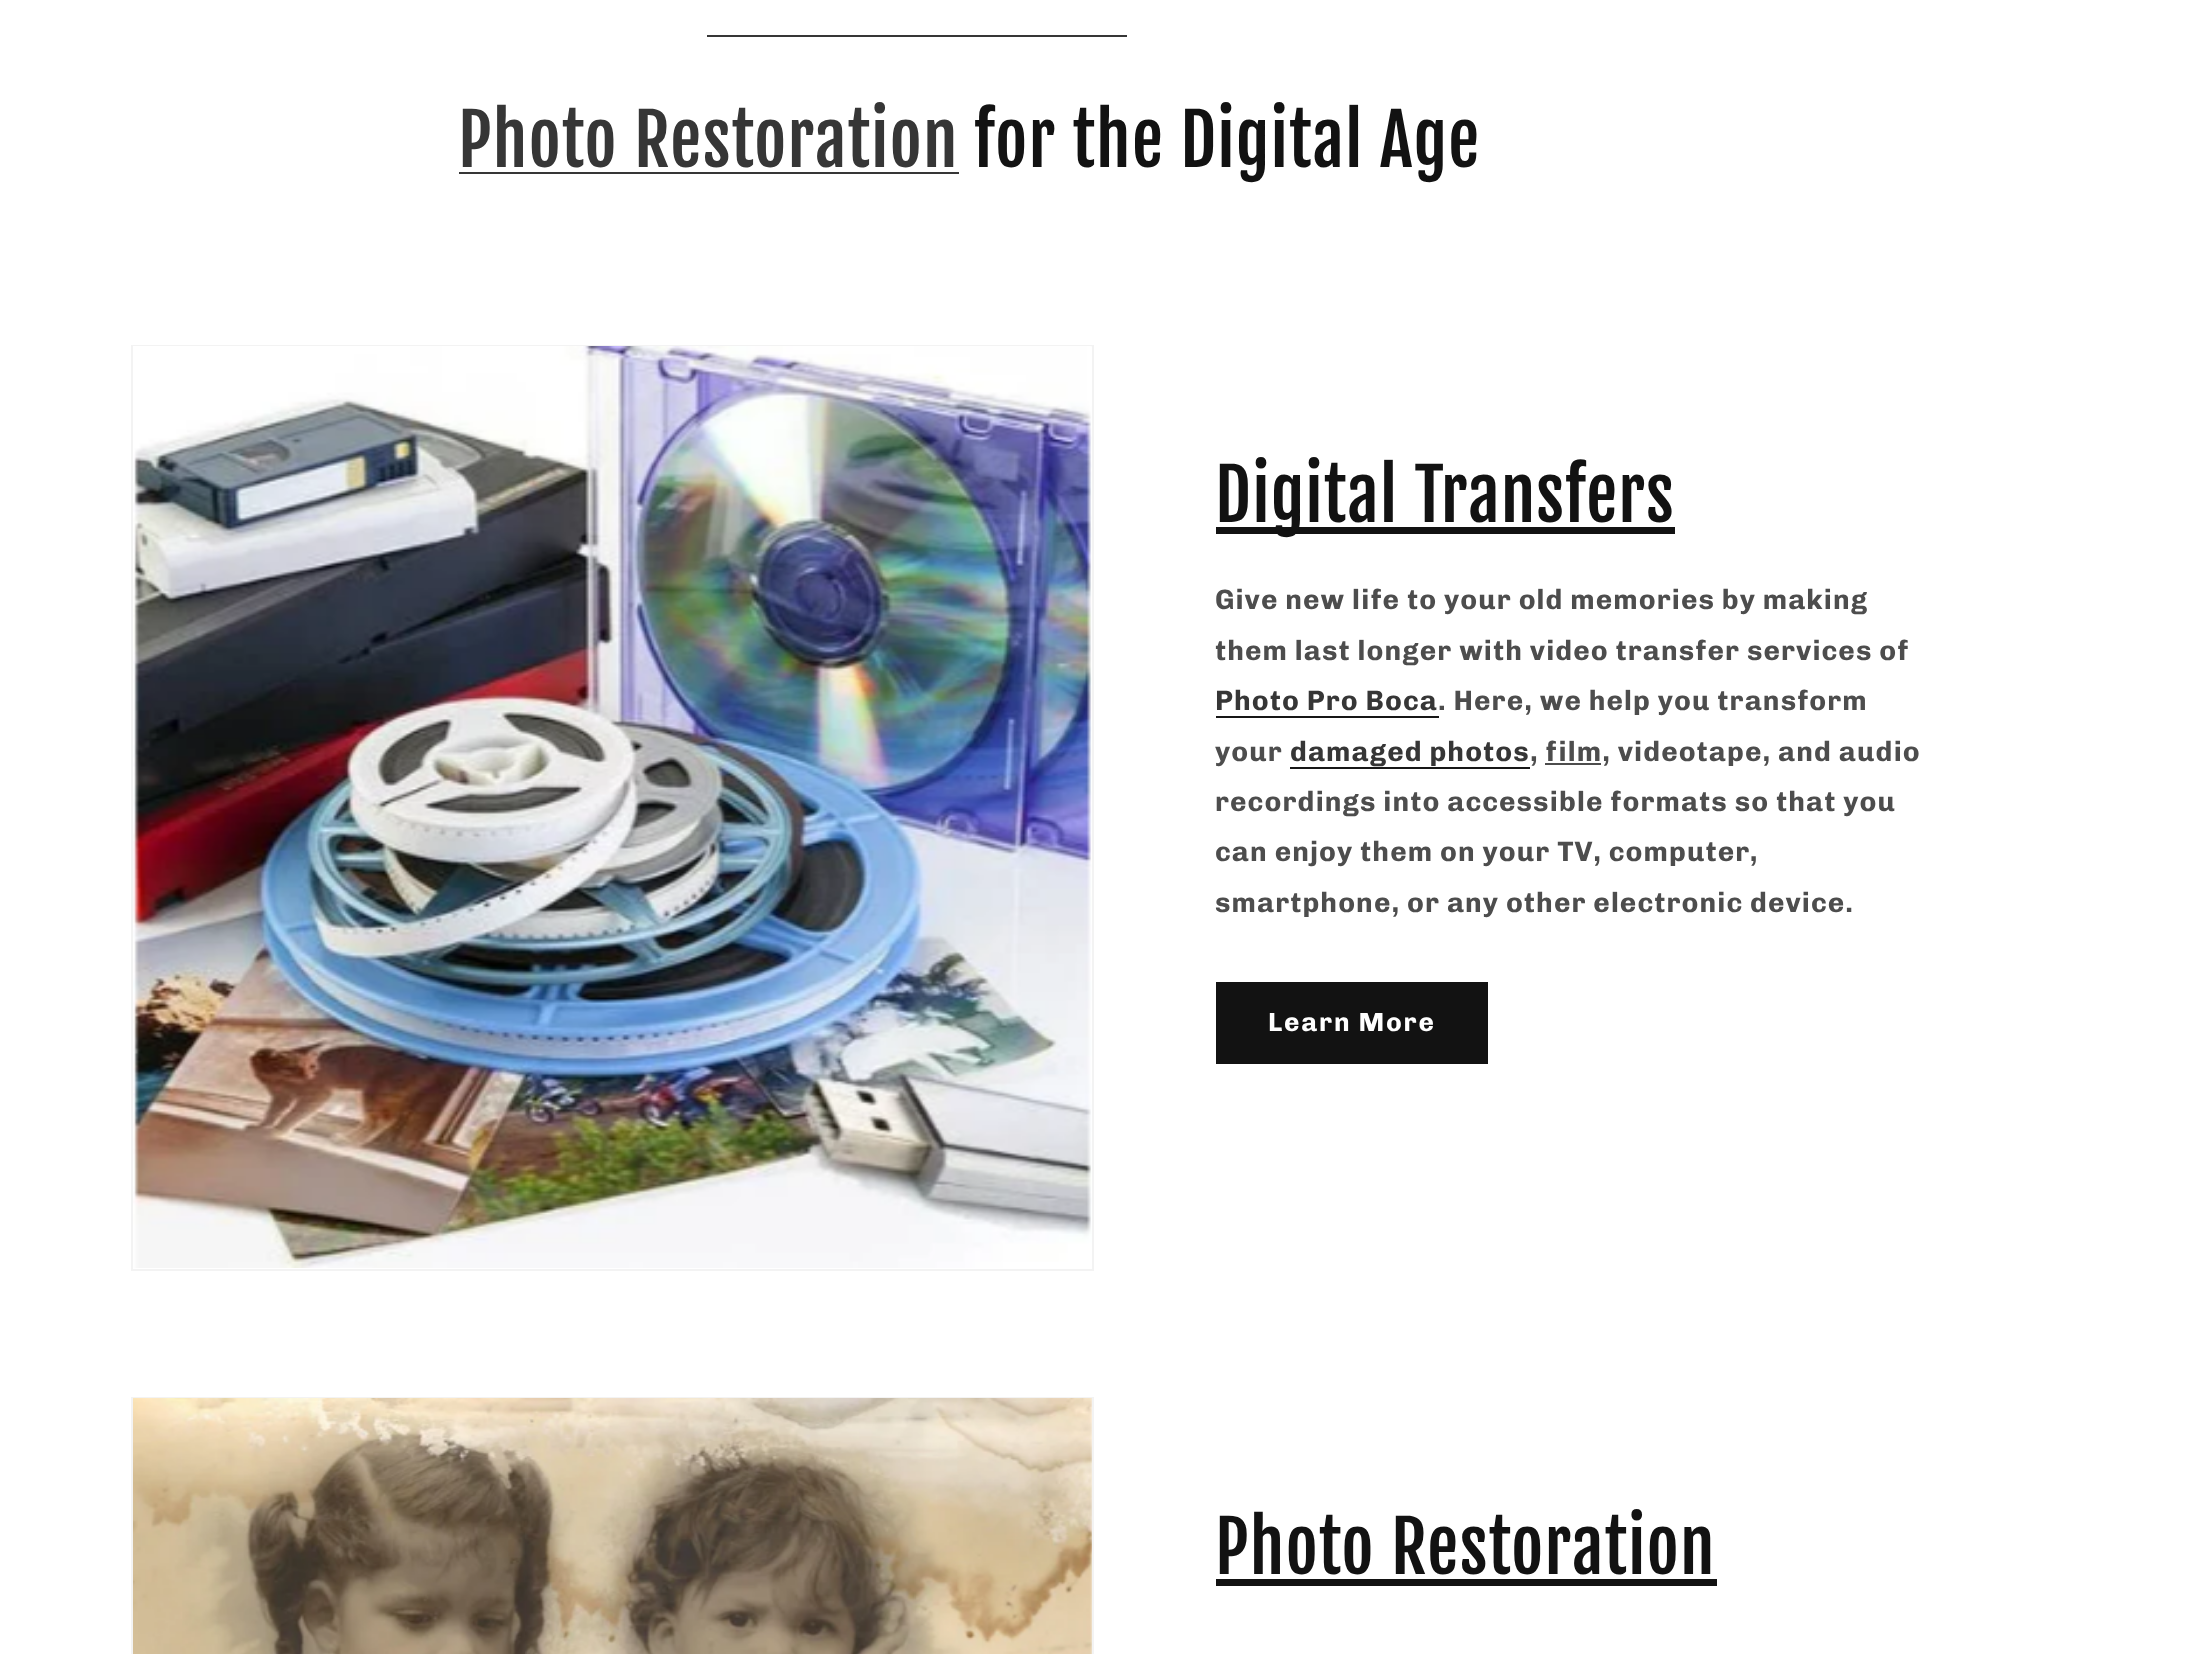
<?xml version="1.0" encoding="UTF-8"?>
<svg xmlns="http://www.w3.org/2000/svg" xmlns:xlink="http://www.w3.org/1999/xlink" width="2185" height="1654">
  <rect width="100%" height="100%" fill="#ffffff" />
  <rect x="707" y="35" width="420" height="2" fill="#363636" />
  <rect x="459" y="172" width="500" height="2" fill="#363636" />
  <rect x="132" y="346" width="961" height="924" fill="none" stroke="#f3f3f3" stroke-width="2" />
  <image x="133" y="346" width="959" height="922" xlink:href="image1.png" />
  <rect x="1216" y="527" width="459" height="7" fill="#121212" />
  <rect x="1216" y="716" width="223" height="2" fill="#171717" />
  <rect x="1290" y="767" width="240" height="2" fill="#171717" />
  <rect x="1545" y="763" width="56" height="2" fill="#4d4d4d" />
  <rect x="1216" y="982" width="272" height="82" fill="#121212" />
  <rect x="132" y="1398" width="961" height="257" fill="none" stroke="#f3f3f3" stroke-width="2" />
  <image x="133" y="1398" width="959" height="256" xlink:href="image2.png" />
  <rect x="1216" y="1579" width="501" height="7" fill="#121212" />
  <text x="458" y="167" style="font-family: Fjalla One; font-size: 70px; letter-spacing: 1.05px; fill: #363636">Photo Restoration</text>
  <text x="974" y="167" style="font-family: Fjalla One; font-size: 70px; letter-spacing: 1.05px; fill: #121212">for the Digital Age</text>
  <text x="1215" y="522" style="font-family: Fjalla One; font-size: 70px; letter-spacing: 1.05px; fill: #121212">Digital Transfers</text>
  <text x="1215" y="609" style="font-family: Chivo; font-size: 28px; font-weight: bold; letter-spacing: 1.05px; fill: #4d4d4d">Give new life to your old memories by making</text>
  <text x="1215" y="660" style="font-family: Chivo; font-size: 28px; font-weight: bold; letter-spacing: 1.05px; fill: #4d4d4d">them last longer with video transfer services of</text>
  <text x="1215" y="710" style="font-family: Chivo; font-size: 28px; font-weight: bold; letter-spacing: 1.05px; fill: #363636">Photo Pro Boca</text>
  <text x="1438" y="710" style="font-family: Chivo; font-size: 28px; font-weight: bold; letter-spacing: 1.05px; fill: #4d4d4d">. Here, we help you transform</text>
  <text x="1215" y="761" style="font-family: Chivo; font-size: 28px; font-weight: bold; letter-spacing: 1.05px; fill: #4d4d4d">your</text>
  <text x="1290" y="761" style="font-family: Chivo; font-size: 28px; font-weight: bold; letter-spacing: 1.05px; fill: #363636">damaged photos</text>
  <text x="1530" y="761" style="font-family: Chivo; font-size: 28px; font-weight: bold; letter-spacing: 1.05px; fill: #4d4d4d">, film, videotape, and audio</text>
  <text x="1215" y="811" style="font-family: Chivo; font-size: 28px; font-weight: bold; letter-spacing: 1.05px; fill: #4d4d4d">recordings into accessible formats so that you</text>
  <text x="1215" y="861" style="font-family: Chivo; font-size: 28px; font-weight: bold; letter-spacing: 1.05px; fill: #4d4d4d">can enjoy them on your TV, computer,</text>
  <text x="1215" y="912" style="font-family: Chivo; font-size: 28px; font-weight: bold; letter-spacing: 1.05px; fill: #4d4d4d">smartphone, or any other electronic device.</text>
  <text x="1268" y="1031" style="font-family: Chivo; font-size: 26.25px; font-weight: bold; letter-spacing: 1.75px; fill: #ffffff">Learn More</text>
  <text x="1215" y="1574" style="font-family: Fjalla One; font-size: 70px; letter-spacing: 1.05px; fill: #121212">Photo Restoration</text>
</svg>
